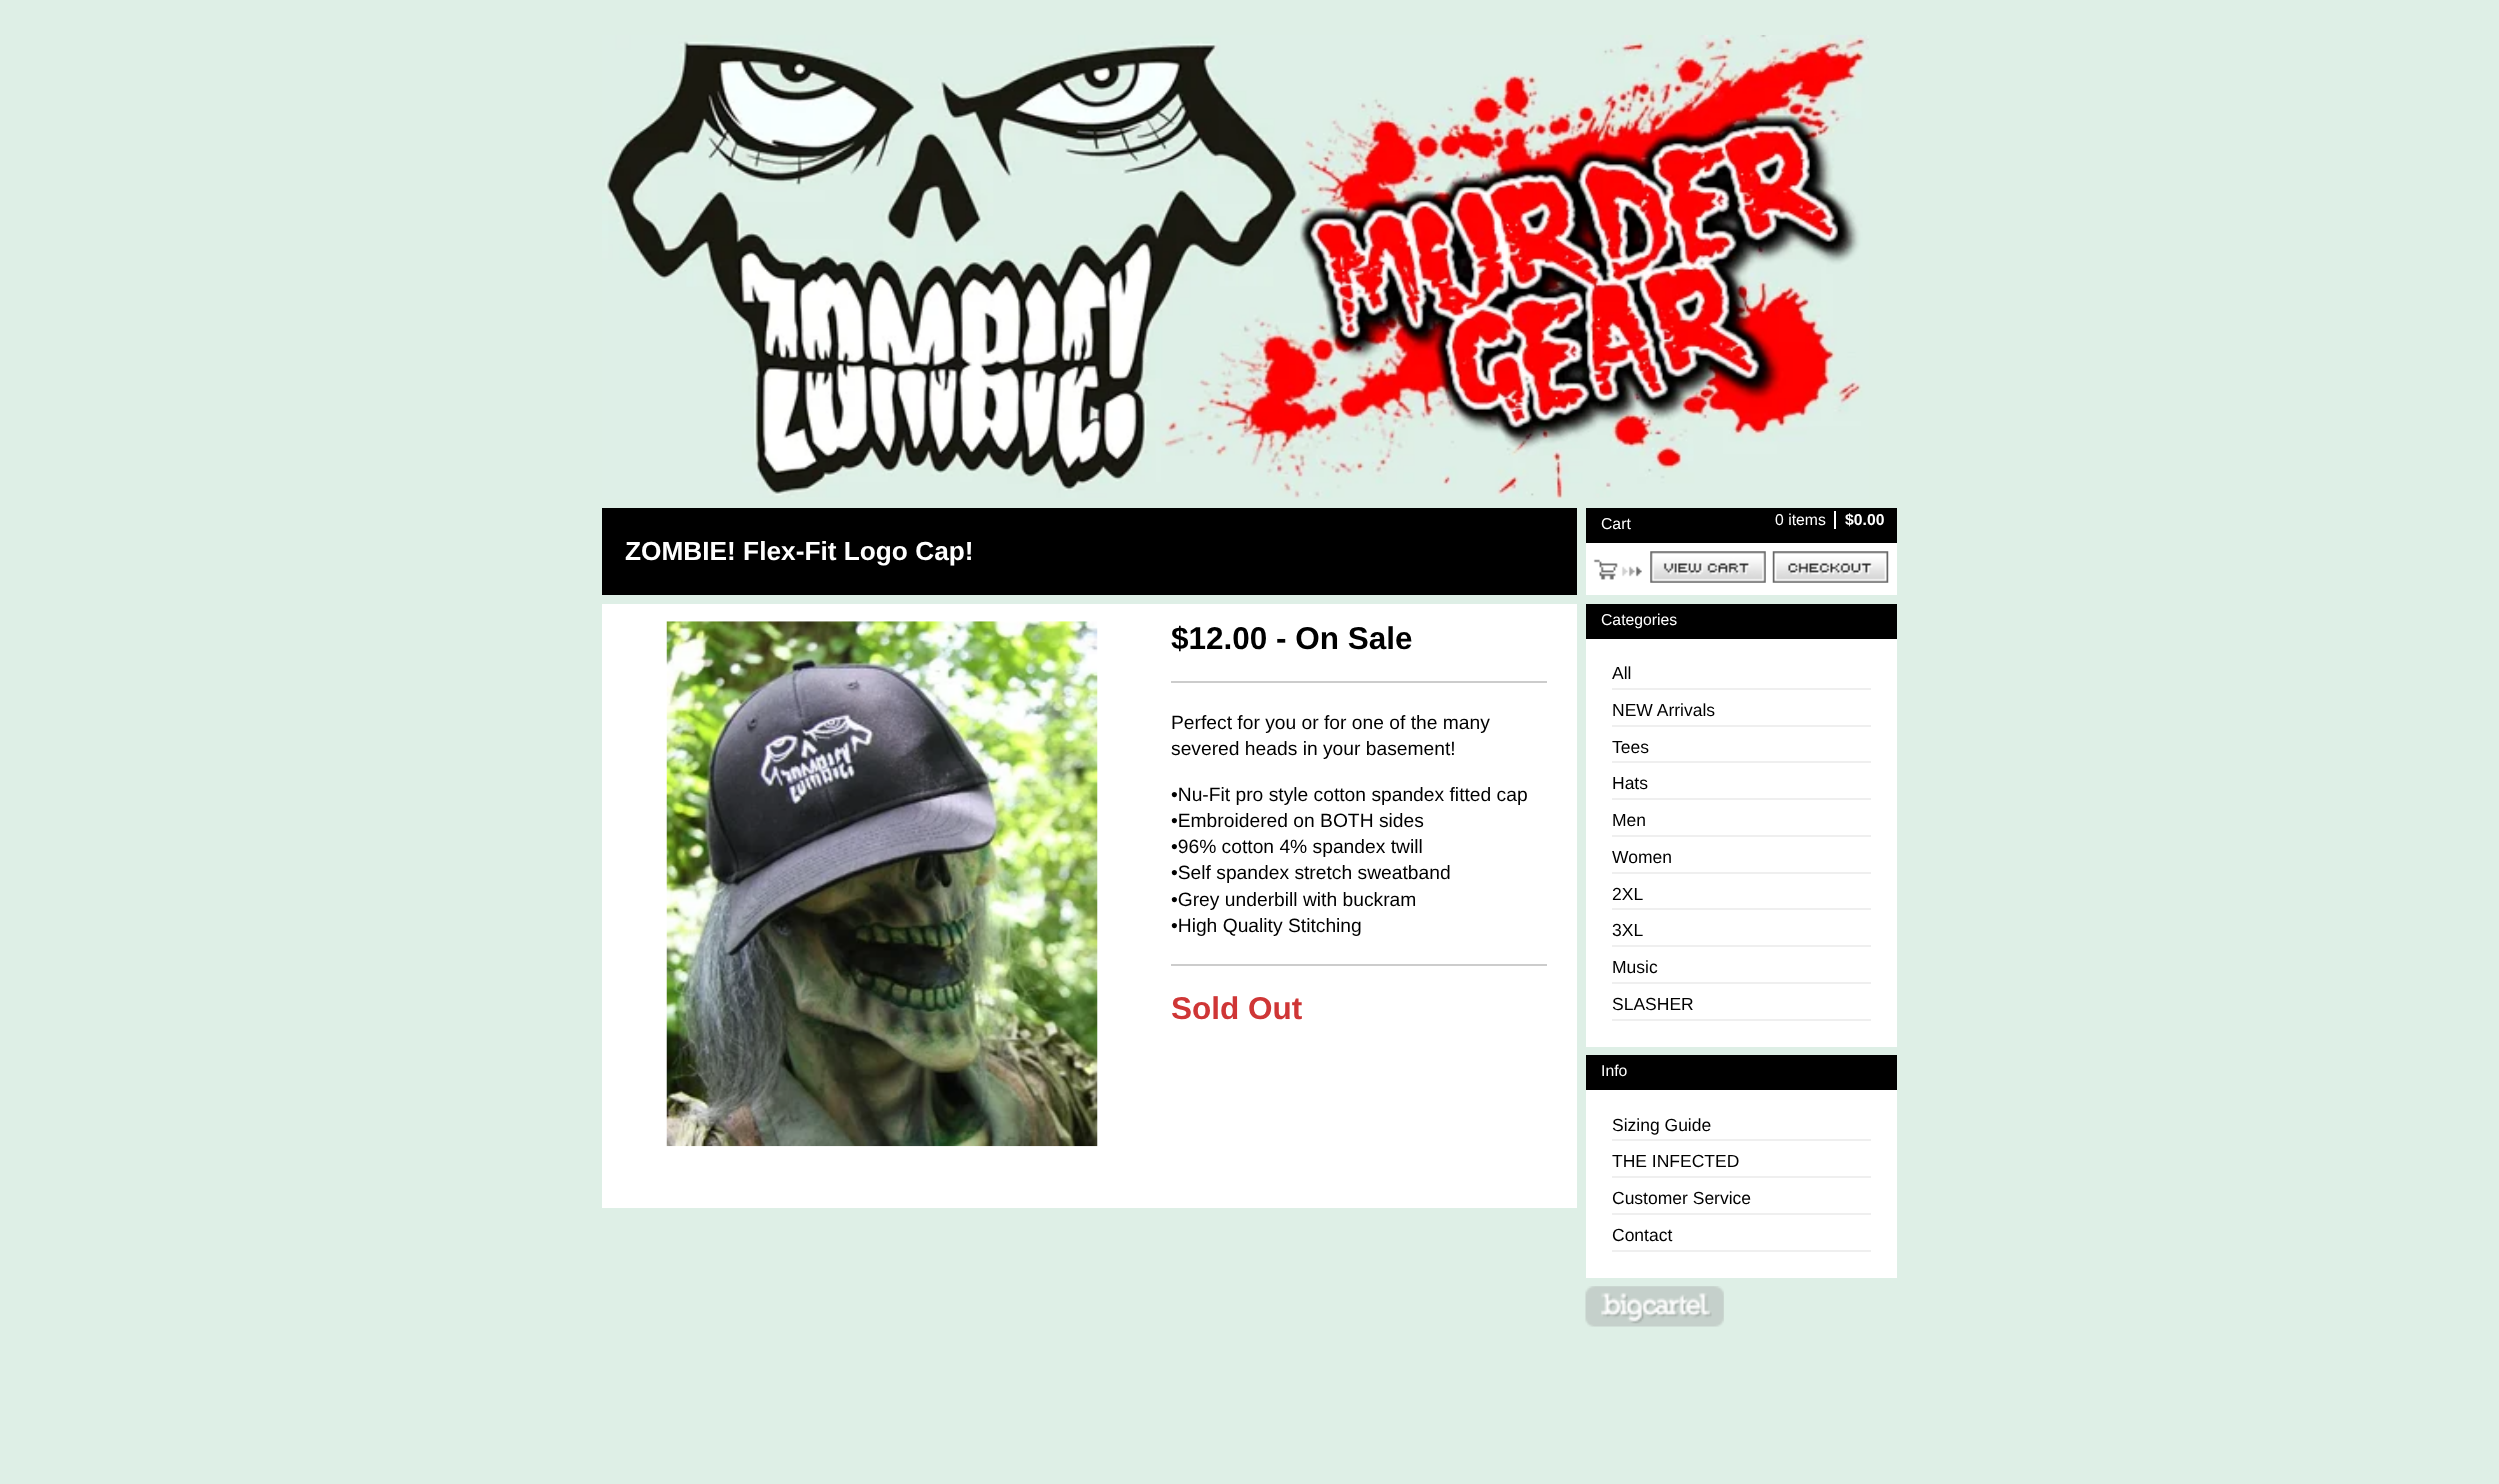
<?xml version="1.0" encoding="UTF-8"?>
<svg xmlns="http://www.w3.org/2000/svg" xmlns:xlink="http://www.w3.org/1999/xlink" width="2499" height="1484">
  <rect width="100%" height="100%" fill="#deefe6" />
  <image x="602" y="35" width="1267" height="464" xlink:href="image1.png" />
  <rect x="602" y="508" width="975" height="87" fill="#000000" />
  <rect x="602" y="604" width="975" height="604" fill="#ffffff" />
  <image x="666" y="621" width="432" height="526" xlink:href="image2.png" />
  <rect x="1171" y="681" width="376" height="2" fill="#cccccc" />
  <rect x="1171" y="964" width="376" height="2" fill="#cccccc" />
  <rect x="1586" y="543" width="311" height="52" fill="#ffffff" />
  <image x="1593" y="559" width="49" height="21" xlink:href="image3.png" />
  <rect x="1586" y="508" width="311" height="35" fill="#000000" />
  <rect x="1834" y="511" width="2" height="18" fill="#ffffff" />
  <image x="1650" y="551" width="116" height="32" xlink:href="image4.png" />
  <image x="1772" y="551" width="117" height="32" xlink:href="image5.png" />
  <rect x="1586" y="639" width="311" height="408" fill="#ffffff" />
  <rect x="1586" y="604" width="311" height="35" fill="#000000" />
  <rect x="1612" y="688" width="259" height="2" fill="#efefef" />
  <rect x="1612" y="725" width="259" height="2" fill="#efefef" />
  <rect x="1612" y="761" width="259" height="2" fill="#efefef" />
  <rect x="1612" y="798" width="259" height="2" fill="#efefef" />
  <rect x="1612" y="835" width="259" height="2" fill="#efefef" />
  <rect x="1612" y="872" width="259" height="2" fill="#efefef" />
  <rect x="1612" y="908" width="259" height="2" fill="#efefef" />
  <rect x="1612" y="945" width="259" height="2" fill="#efefef" />
  <rect x="1612" y="982" width="259" height="2" fill="#efefef" />
  <rect x="1612" y="1019" width="259" height="2" fill="#efefef" />
  <rect x="1586" y="1090" width="311" height="188" fill="#ffffff" />
  <rect x="1586" y="1055" width="311" height="35" fill="#000000" />
  <rect x="1612" y="1139" width="259" height="2" fill="#efefef" />
  <rect x="1612" y="1176" width="259" height="2" fill="#efefef" />
  <rect x="1612" y="1213" width="259" height="2" fill="#efefef" />
  <rect x="1612" y="1250" width="259" height="2" fill="#efefef" />
  <image x="1585" y="1286" width="139" height="41" xlink:href="image6.png" />
  <text x="625" y="560" style="font-family: Liberation Sans; font-size: 26.25px; font-weight: bold; fill: #ffffff">ZOMBIE! Flex-Fit Logo Cap!</text>
  <text x="1171" y="649" style="font-family: Liberation Sans; font-size: 31.5px; font-weight: bold; fill: #000000">$12.00 - On Sale</text>
  <text x="1171" y="729" style="font-family: Liberation Sans; font-size: 19.25px; fill: #000000">Perfect for you or for one of the many</text>
  <text x="1171" y="755" style="font-family: Liberation Sans; font-size: 19.25px; fill: #000000">severed heads in your basement!</text>
  <text x="1171" y="801" style="font-family: Liberation Sans; font-size: 19.25px; fill: #000000">•Nu-Fit pro style cotton spandex fitted cap</text>
  <text x="1171" y="827" style="font-family: Liberation Sans; font-size: 19.25px; fill: #000000">•Embroidered on BOTH sides</text>
  <text x="1171" y="853" style="font-family: Liberation Sans; font-size: 19.25px; fill: #000000">•96% cotton 4% spandex twill</text>
  <text x="1171" y="879" style="font-family: Liberation Sans; font-size: 19.25px; fill: #000000">•Self spandex stretch sweatband</text>
  <text x="1171" y="906" style="font-family: Liberation Sans; font-size: 19.25px; fill: #000000">•Grey underbill with buckram</text>
  <text x="1171" y="932" style="font-family: Liberation Sans; font-size: 19.25px; fill: #000000">•High Quality Stitching</text>
  <text x="1171" y="1019" style="font-family: Liberation Sans; font-size: 31.5px; font-weight: bold; fill: #cf3636">Sold Out</text>
  <text x="1601" y="529" style="font-family: Liberation Sans; font-size: 15.75px; fill: #ffffff">Cart</text>
  <text x="1775" y="525" style="font-family: Liberation Sans; font-size: 15.75px; fill: #ffffff">0 items</text>
  <text x="1845" y="525" style="font-family: Liberation Sans; font-size: 15.75px; font-weight: bold; fill: #ffffff">$0.00</text>
  <text x="1601" y="625" style="font-family: Liberation Sans; font-size: 15.75px; fill: #ffffff">Categories</text>
  <text x="1612" y="679" style="font-family: Liberation Sans; font-size: 17.5px; fill: #000000">All</text>
  <text x="1612" y="716" style="font-family: Liberation Sans; font-size: 17.5px; fill: #000000">NEW Arrivals</text>
  <text x="1612" y="753" style="font-family: Liberation Sans; font-size: 17.5px; fill: #000000">Tees</text>
  <text x="1612" y="789" style="font-family: Liberation Sans; font-size: 17.5px; fill: #000000">Hats</text>
  <text x="1612" y="826" style="font-family: Liberation Sans; font-size: 17.5px; fill: #000000">Men</text>
  <text x="1612" y="863" style="font-family: Liberation Sans; font-size: 17.5px; fill: #000000">Women</text>
  <text x="1612" y="900" style="font-family: Liberation Sans; font-size: 17.5px; fill: #000000">2XL</text>
  <text x="1612" y="936" style="font-family: Liberation Sans; font-size: 17.5px; fill: #000000">3XL</text>
  <text x="1612" y="973" style="font-family: Liberation Sans; font-size: 17.5px; fill: #000000">Music</text>
  <text x="1612" y="1010" style="font-family: Liberation Sans; font-size: 17.5px; fill: #000000">SLASHER</text>
  <text x="1601" y="1076" style="font-family: Liberation Sans; font-size: 15.75px; fill: #ffffff">Info</text>
  <text x="1612" y="1131" style="font-family: Liberation Sans; font-size: 17.5px; fill: #000000">Sizing Guide</text>
  <text x="1612" y="1167" style="font-family: Liberation Sans; font-size: 17.5px; fill: #000000">THE INFECTED</text>
  <text x="1612" y="1204" style="font-family: Liberation Sans; font-size: 17.5px; fill: #000000">Customer Service</text>
  <text x="1612" y="1241" style="font-family: Liberation Sans; font-size: 17.5px; fill: #000000">Contact</text>
</svg>
